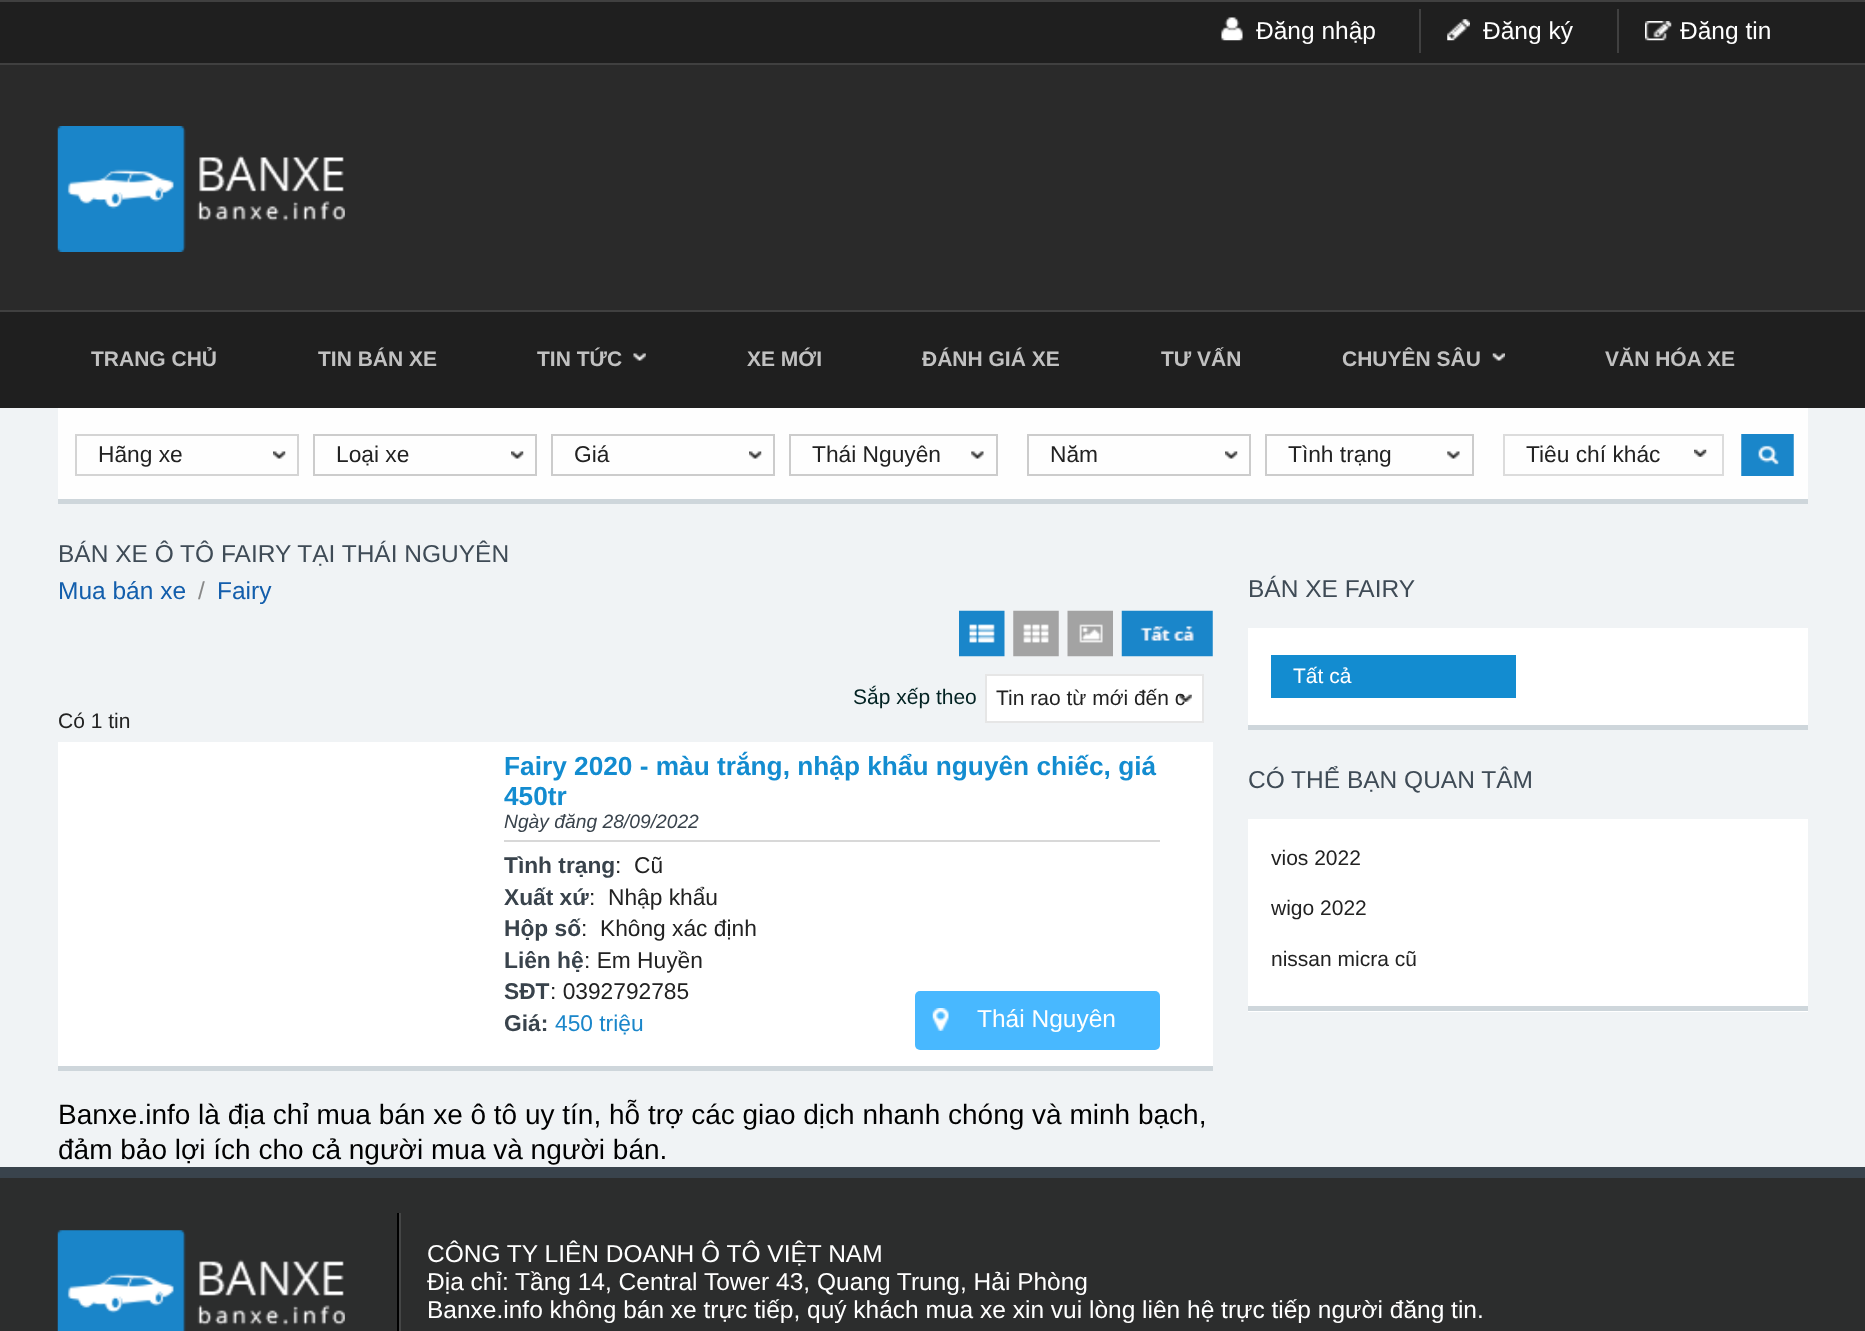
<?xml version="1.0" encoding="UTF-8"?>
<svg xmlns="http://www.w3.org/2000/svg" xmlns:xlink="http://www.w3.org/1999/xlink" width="1865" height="1331">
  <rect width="100%" height="100%" fill="#f0f3f5" />
  <rect y="2" width="1865" height="61" fill="#1f1f1f" />
  <rect width="1865" height="2" fill="#404040" />
  <rect y="63" width="1865" height="2" fill="#404040" />
  <image x="1221" y="17" width="22" height="24" xlink:href="image1.png" />
  <rect x="1419" y="9" width="2" height="44" fill="#404040" />
  <image x="1447" y="19" width="23" height="22" xlink:href="image2.png" />
  <rect x="1617" y="9" width="2" height="44" fill="#404040" />
  <image x="1645" y="21" width="27" height="20" xlink:href="image3.png" />
  <rect y="65" width="1865" height="245" fill="#2a2a2a" />
  <image x="57" y="126" width="288" height="126" xlink:href="image4.png" />
  <rect y="312" width="1865" height="96" fill="#1f1f1f" />
  <rect y="310" width="1865" height="2" fill="#404040" />
  <image x="633" y="353" width="13" height="8" xlink:href="image5.png" />
  <image x="1492" y="353" width="13" height="8" xlink:href="image6.png" />
  <rect x="58" y="408" width="1750" height="91" fill="#fefefe" />
  <rect x="58" y="499" width="1750" height="5" fill="#ced6db" />
  <rect x="76" y="435" width="222" height="40" fill="none" stroke="#d4d4d4" stroke-width="2" />
  <image x="273" y="451" width="13" height="8" xlink:href="image7.png" />
  <rect x="314" y="435" width="222" height="40" fill="none" stroke="#cccccc" stroke-width="2" />
  <image x="511" y="451" width="13" height="8" xlink:href="image7.png" />
  <rect x="552" y="435" width="222" height="40" fill="none" stroke="#cccccc" stroke-width="2" />
  <image x="749" y="451" width="13" height="8" xlink:href="image8.png" />
  <rect x="790" y="435" width="207" height="40" fill="none" stroke="#cccccc" stroke-width="2" />
  <image x="971" y="451" width="13" height="8" xlink:href="image9.png" />
  <rect x="1028" y="435" width="222" height="40" fill="none" stroke="#cccccc" stroke-width="2" />
  <image x="1225" y="451" width="13" height="8" xlink:href="image10.png" />
  <rect x="1266" y="435" width="207" height="40" fill="none" stroke="#cccccc" stroke-width="2" />
  <image x="1447" y="451" width="13" height="8" xlink:href="image9.png" />
  <rect x="1504" y="435" width="219" height="40" fill="none" stroke="#dcdcdc" stroke-width="2" />
  <image x="1694" y="449" width="13" height="8" xlink:href="image11.png" />
  <image x="1741" y="434" width="53" height="42" xlink:href="image12.png" />
  <image x="959" y="610" width="46" height="47" xlink:href="image13.png" />
  <image x="1013" y="610" width="46" height="47" xlink:href="image14.png" />
  <image x="1067" y="610" width="46" height="47" xlink:href="image15.png" />
  <image x="1121" y="610" width="92" height="47" xlink:href="image16.png" />
  <rect x="986" y="675" width="217" height="47" fill="#ffffff" stroke="#e6e6e6" stroke-width="2" />
  <rect x="58" y="742" width="1155" height="324" fill="#ffffff" />
  <rect x="58" y="1066" width="1155" height="5" fill="#ced6db" />
  <rect x="504" y="840" width="656" height="2" fill="#d8d8d8" />
  <rect x="915" y="991" width="245" height="59" rx="5" fill="#48b8ff" />
  <image x="932" y="1008" width="17" height="23" xlink:href="image18.png" />
  <rect x="1248" y="628" width="560" height="384" fill="#ffffff" />
  <rect x="1248" y="725" width="560" height="5" fill="#ced6db" />
  <rect x="1271" y="655" width="245" height="43" fill="#138cd0" />
  <rect x="1248" y="1006" width="560" height="5" fill="#ced6db" />
  <rect x="1248" y="730" width="560" height="89" fill="#f0f3f5" />
  <rect y="1178" width="1865" height="153" fill="#2c2d2d" />
  <rect y="1167" width="1865" height="11" fill="#39434c" />
  <rect x="397" y="1213" width="2" height="118" fill="#000000" />
  <image x="57" y="1230" width="288" height="101" xlink:href="image19.png" />
  <rect x="399" y="1213" width="2" height="118" fill="#454646" />
  <text x="1256" y="39" style="font-family: Liberation Sans; font-size: 24.5px; fill: #ffffff">Đăng nhập</text>
  <text x="1483" y="39" style="font-family: Liberation Sans; font-size: 24.5px; fill: #ffffff">Đăng ký</text>
  <text x="1680" y="39" style="font-family: Liberation Sans; font-size: 24.5px; fill: #ffffff">Đăng tin</text>
  <text x="91" y="366" style="font-family: Liberation Sans; font-size: 21px; font-weight: bold; fill: #c1c1c1">TRANG CHỦ</text>
  <text x="318" y="366" style="font-family: Liberation Sans; font-size: 21px; font-weight: bold; fill: #c1c1c1">TIN BÁN XE</text>
  <text x="537" y="366" style="font-family: Liberation Sans; font-size: 21px; font-weight: bold; fill: #c1c1c1">TIN TỨC</text>
  <text x="747" y="366" style="font-family: Liberation Sans; font-size: 21px; font-weight: bold; fill: #c1c1c1">XE MỚI</text>
  <text x="922" y="366" style="font-family: Liberation Sans; font-size: 21px; font-weight: bold; fill: #c1c1c1">ĐÁNH GIÁ XE</text>
  <text x="1161" y="366" style="font-family: Liberation Sans; font-size: 21px; font-weight: bold; fill: #c1c1c1">TƯ VẤN</text>
  <text x="1342" y="366" style="font-family: Liberation Sans; font-size: 21px; font-weight: bold; fill: #c1c1c1">CHUYÊN SÂU</text>
  <text x="1605" y="366" style="font-family: Liberation Sans; font-size: 21px; font-weight: bold; fill: #c1c1c1">VĂN HÓA XE</text>
  <text x="98" y="462" style="font-family: Liberation Sans; font-size: 22.75px; fill: #222222">Hãng xe</text>
  <text x="336" y="462" style="font-family: Liberation Sans; font-size: 22.75px; fill: #222222">Loại xe</text>
  <text x="574" y="462" style="font-family: Liberation Sans; font-size: 22.75px; fill: #222222">Giá</text>
  <text x="812" y="462" style="font-family: Liberation Sans; font-size: 22.75px; fill: #222222">Thái Nguyên</text>
  <text x="1050" y="462" style="font-family: Liberation Sans; font-size: 22.75px; fill: #222222">Năm</text>
  <text x="1288" y="462" style="font-family: Liberation Sans; font-size: 22.75px; fill: #222222">Tình trạng</text>
  <text x="1526" y="462" style="font-family: Liberation Sans; font-size: 22.75px; fill: #222222">Tiêu chí khác</text>
  <text x="58" y="562" style="font-family: Liberation Sans; font-size: 24.5px; fill: #3f4b56">BÁN XE Ô TÔ FAIRY TẠI THÁI NGUYÊN</text>
  <text x="58" y="599" style="font-family: Liberation Sans; font-size: 24.5px; fill: #135eac">Mua bán xe</text>
  <text x="198" y="599" style="font-family: Liberation Sans; font-size: 24.5px; fill: #888888">/</text>
  <text x="217" y="599" style="font-family: Liberation Sans; font-size: 24.5px; fill: #135eac">Fairy</text>
  <text x="853" y="704" style="font-family: Liberation Sans; font-size: 21px; fill: #022222">Sắp xếp theo</text>
  <text x="996" y="705" style="font-family: Liberation Sans; font-size: 21px; fill: #222222">Tin rao từ mới đến c</text>
  <image x="1179" y="694" width="13" height="8" xlink:href="image17.png" />
  <text x="58" y="728" style="font-family: Liberation Sans; font-size: 21px; fill: #222222">Có 1 tin</text>
  <text x="504" y="775" style="font-family: Liberation Sans; font-size: 26.25px; font-weight: bold; fill: #138cd0">Fairy 2020 - màu trắng, nhập khẩu nguyên chiếc, giá</text>
  <text x="504" y="805" style="font-family: Liberation Sans; font-size: 26.25px; font-weight: bold; fill: #138cd0">450tr</text>
  <text x="504" y="828" style="font-family: Liberation Sans; font-size: 19.25px; font-style: italic; fill: #39434c">Ngày đăng 28/09/2022</text>
  <text x="504" y="873" style="font-family: Liberation Sans; font-size: 22.75px; font-weight: bold; fill: #39434c">Tình trạng</text>
  <text x="615" y="873" style="font-family: Liberation Sans; font-size: 22.75px; fill: #222222" xml:space="preserve">:  Cũ</text>
  <text x="504" y="905" style="font-family: Liberation Sans; font-size: 22.75px; font-weight: bold; fill: #39434c">Xuất xứ</text>
  <text x="589" y="905" style="font-family: Liberation Sans; font-size: 22.75px; fill: #222222" xml:space="preserve">:  Nhập khẩu</text>
  <text x="504" y="936" style="font-family: Liberation Sans; font-size: 22.75px; font-weight: bold; fill: #39434c">Hộp số</text>
  <text x="581" y="936" style="font-family: Liberation Sans; font-size: 22.75px; fill: #222222" xml:space="preserve">:  Không xác định</text>
  <text x="504" y="968" style="font-family: Liberation Sans; font-size: 22.75px; font-weight: bold; fill: #39434c">Liên hệ</text>
  <text x="584" y="968" style="font-family: Liberation Sans; font-size: 22.75px; fill: #222222">: Em Huyền</text>
  <text x="504" y="999" style="font-family: Liberation Sans; font-size: 22.75px; font-weight: bold; fill: #39434c">SĐT</text>
  <text x="550" y="999" style="font-family: Liberation Sans; font-size: 22.75px; fill: #222222">: 0392792785</text>
  <text x="504" y="1031" style="font-family: Liberation Sans; font-size: 22.75px; font-weight: bold; fill: #39434c">Giá:</text>
  <text x="555" y="1031" style="font-family: Liberation Sans; font-size: 22.75px; fill: #1a86ca">450 triệu</text>
  <text x="977" y="1027" style="font-family: Liberation Sans; font-size: 24.5px; fill: #ffffff">Thái Nguyên</text>
  <text x="58" y="1124" style="font-family: Liberation Sans; font-size: 28px; fill: #000000">Banxe.info là địa chỉ mua bán xe ô tô uy tín, hỗ trợ các giao dịch nhanh chóng và minh bạch,</text>
  <text x="58" y="1159" style="font-family: Liberation Sans; font-size: 28px; fill: #000000">đảm bảo lợi ích cho cả người mua và người bán.</text>
  <text x="1248" y="597" style="font-family: Liberation Sans; font-size: 24.5px; fill: #3f4b56">BÁN XE FAIRY</text>
  <text x="1293" y="683" style="font-family: Liberation Sans; font-size: 21px; fill: #ffffff">Tất cả</text>
  <text x="1248" y="788" style="font-family: Liberation Sans; font-size: 24.5px; fill: #3f4b56">CÓ THỂ BẠN QUAN TÂM</text>
  <text x="1271" y="865" style="font-family: Liberation Sans; font-size: 21px; fill: #222222">vios 2022</text>
  <text x="1271" y="915" style="font-family: Liberation Sans; font-size: 21px; fill: #222222">wigo 2022</text>
  <text x="1271" y="966" style="font-family: Liberation Sans; font-size: 21px; fill: #222222">nissan micra cũ</text>
  <text x="427" y="1262" style="font-family: Liberation Sans; font-size: 24.5px; fill: #ffffff">CÔNG TY LIÊN DOANH Ô TÔ VIỆT NAM</text>
  <text x="427" y="1290" style="font-family: Liberation Sans; font-size: 24.5px; fill: #ffffff">Địa chỉ: Tầng 14, Central Tower 43, Quang Trung, Hải Phòng</text>
  <text x="427" y="1318" style="font-family: Liberation Sans; font-size: 24.5px; fill: #ffffff">Banxe.info không bán xe trực tiếp, quý khách mua xe xin vui lòng liên hệ trực tiếp người đăng tin.</text>
</svg>
